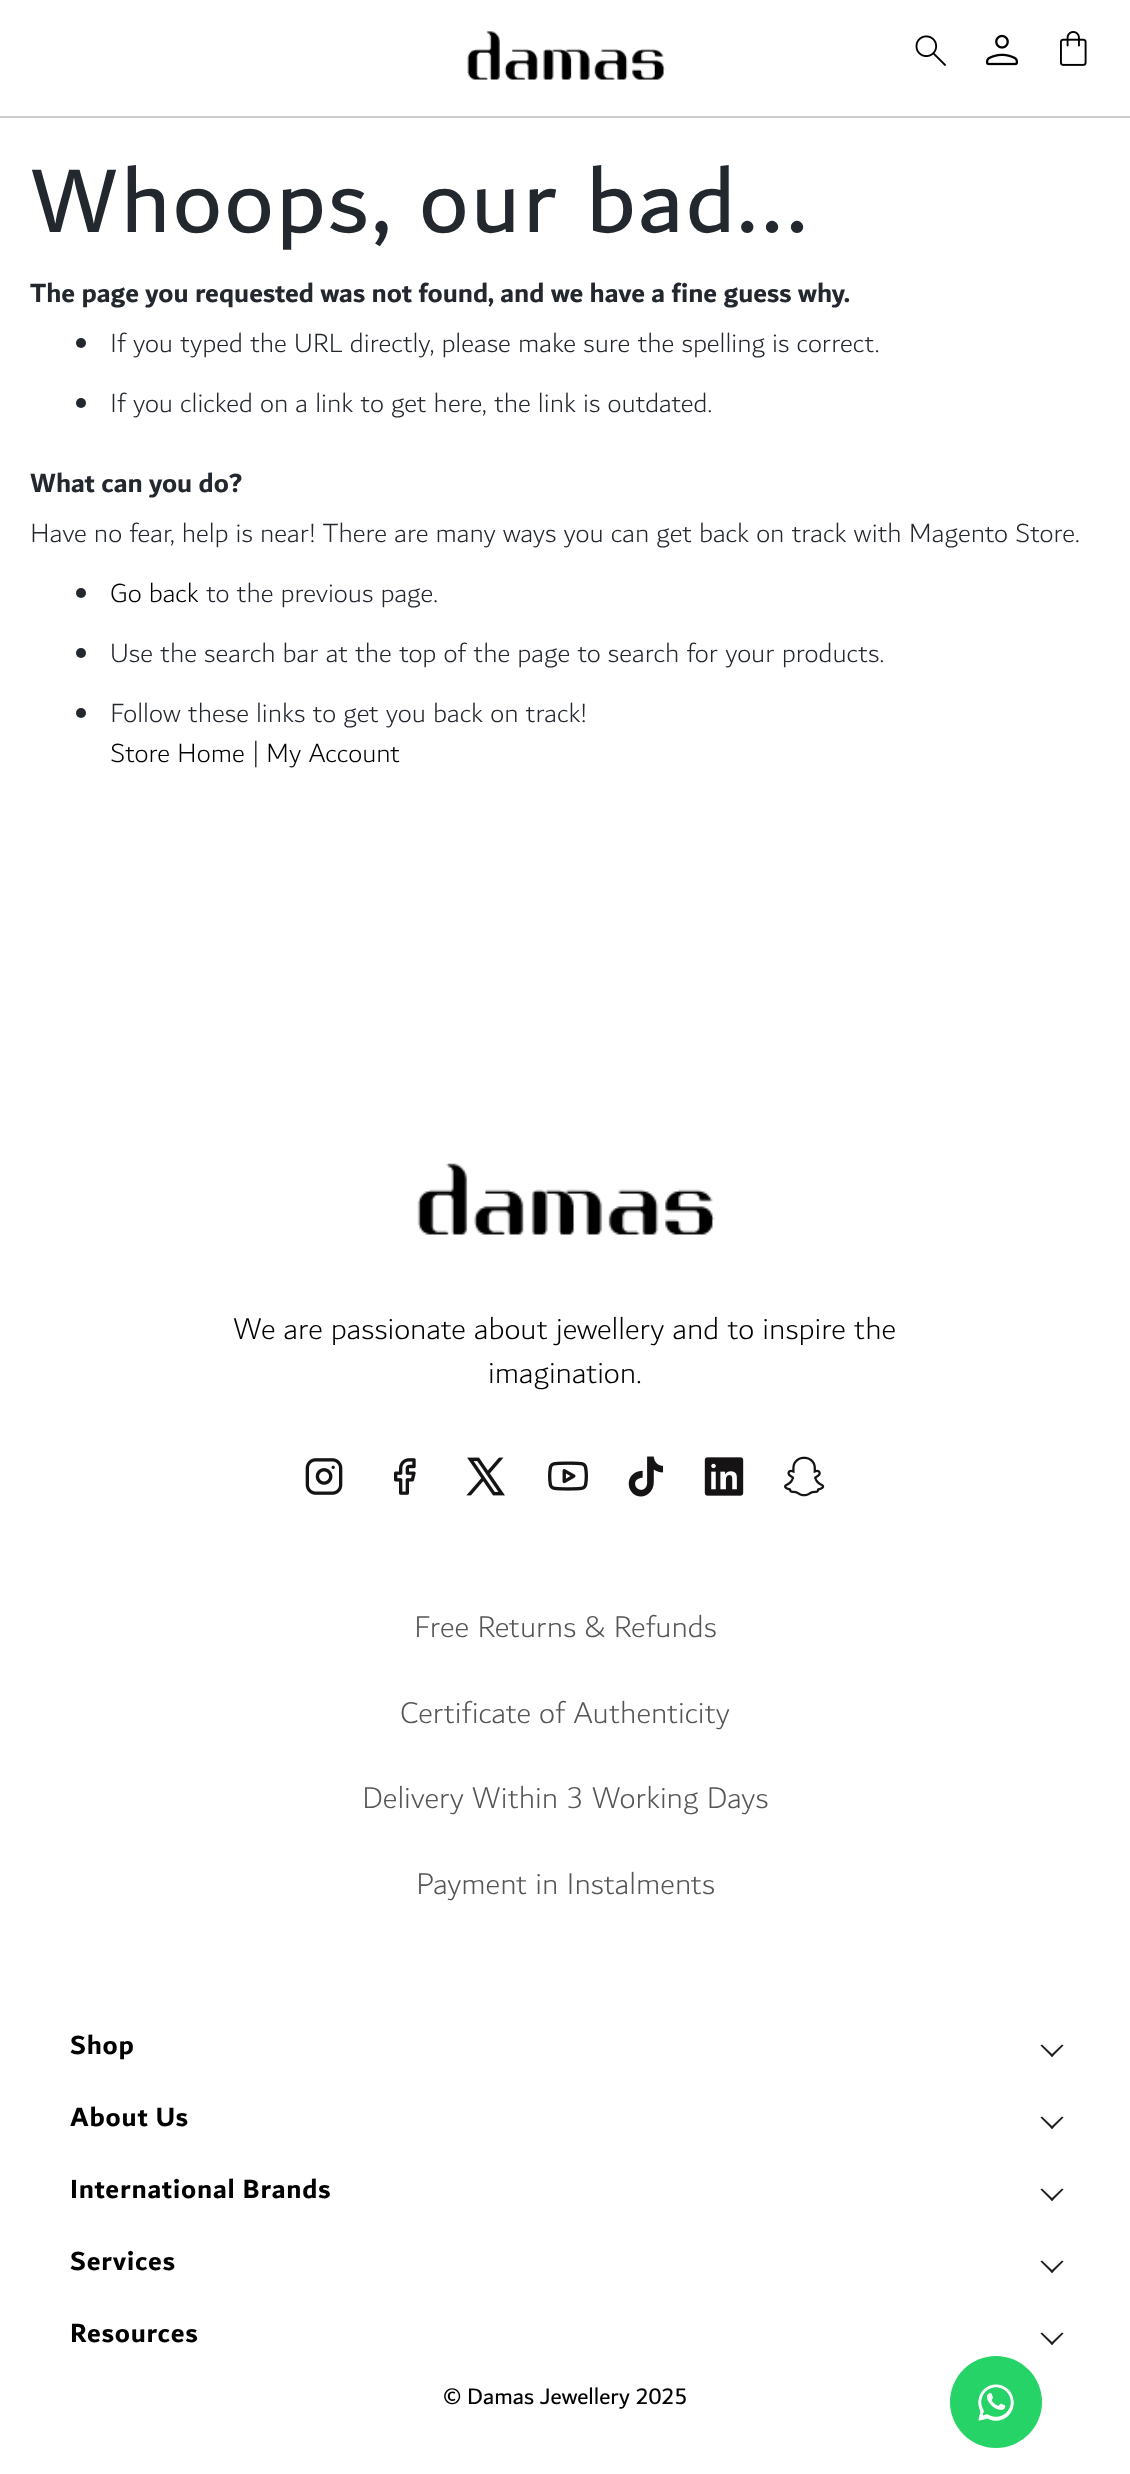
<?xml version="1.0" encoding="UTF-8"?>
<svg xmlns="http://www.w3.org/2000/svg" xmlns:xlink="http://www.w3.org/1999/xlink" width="1130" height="2474">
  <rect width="100%" height="100%" fill="#ffffff" />
  <rect y="116" width="1130" height="2" fill="#cccccc" />
  <image x="467" y="31" width="198" height="49" xlink:href="image1.png" />
  <image x="915" y="35" width="31" height="31" xlink:href="image2.png" />
  <image x="986" y="34" width="32" height="32" xlink:href="image3.png" />
  <image x="1060" y="31" width="27" height="35" xlink:href="image4.png" />
  <circle cx="81" cy="343" r="5" fill="#23272e" />
  <circle cx="81" cy="403" r="5" fill="#23272e" />
  <circle cx="81" cy="593" r="5" fill="#23272e" />
  <circle cx="81" cy="653" r="5" fill="#23272e" />
  <circle cx="81" cy="713" r="5" fill="#23272e" />
  <image x="417" y="1163" width="298" height="72" xlink:href="image5.png" />
  <image x="305" y="1458" width="38" height="37" xlink:href="image6.png" />
  <image x="394" y="1458" width="22" height="37" xlink:href="image7.png" />
  <image x="466" y="1457" width="39" height="39" xlink:href="image8.png" />
  <image x="548" y="1461" width="40" height="30" xlink:href="image9.png" />
  <image x="628" y="1456" width="36" height="41" xlink:href="image10.png" />
  <image x="704" y="1457" width="40" height="39" xlink:href="image11.png" />
  <image x="784" y="1456" width="41" height="41" xlink:href="image12.png" />
  <path d="M 1050.5 2055.5 l 11.5 -11 l 1.5 1 l -11.5 11.5 z" fill="#1c1b1f" />
  <path d="M 1040.5 2045.5 l 1.5 -1 l 11.5 11 l -1.5 1.5 z" fill="#1c1b1f" />
  <path d="M 1050.5 2127.5 l 11.5 -11 l 1.5 1 l -11.5 11.5 z" fill="#1c1b1f" />
  <path d="M 1040.5 2117.5 l 1.5 -1 l 11.5 11 l -1.5 1.5 z" fill="#1c1b1f" />
  <path d="M 1050.5 2199.5 l 11.5 -11 l 1.5 1 l -11.5 11.5 z" fill="#1c1b1f" />
  <path d="M 1040.5 2189.5 l 1.5 -1 l 11.5 11 l -1.5 1.5 z" fill="#1c1b1f" />
  <path d="M 1050.5 2271.5 l 11.5 -11 l 1.5 1 l -11.5 11.5 z" fill="#1c1b1f" />
  <path d="M 1040.5 2261.5 l 1.5 -1 l 11.5 11 l -1.5 1.5 z" fill="#1c1b1f" />
  <path d="M 1050.5 2343.5 l 11.5 -11 l 1.5 1 l -11.5 11.5 z" fill="#1c1b1f" />
  <path d="M 1040.5 2333.5 l 1.5 -1 l 11.5 11 l -1.5 1.5 z" fill="#1c1b1f" />
  <circle cx="996" cy="2402" r="46" fill="#25d366" />
  <image x="978" y="2384" width="36" height="37" xlink:href="image13.png" />
  <text x="30" y="232" style="font-family: 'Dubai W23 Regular'; font-size: 96px; letter-spacing: 2.9px; fill: #23272e">Whoops, our bad...</text>
  <text x="30" y="302" style="font-family: 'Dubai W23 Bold'; font-size: 28px; font-weight: bold; fill: #23272e">The page you requested was not found, and we have a fine guess why.</text>
  <text x="110" y="352" style="font-family: 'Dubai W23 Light'; font-size: 28px; font-weight: 300; fill: #23272e">If you typed the URL directly, please make sure the spelling is correct.</text>
  <text x="110" y="412" style="font-family: 'Dubai W23 Light'; font-size: 28px; font-weight: 300; fill: #23272e">If you clicked on a link to get here, the link is outdated.</text>
  <text x="30" y="492" style="font-family: 'Dubai W23 Bold'; font-size: 28px; font-weight: bold; fill: #23272e">What can you do?</text>
  <text x="30" y="542" style="font-family: 'Dubai W23 Light'; font-size: 28px; font-weight: 300; fill: #23272e">Have no fear, help is near! There are many ways you can get back on track with Magento Store.</text>
  <text x="110" y="602" style="font-family: 'Dubai W23 Light'; font-size: 28px; font-weight: 300; fill: #000000">Go back</text>
  <text x="206" y="602" style="font-family: 'Dubai W23 Light'; font-size: 28px; font-weight: 300; fill: #23272e">to the previous page.</text>
  <text x="110" y="662" style="font-family: 'Dubai W23 Light'; font-size: 28px; font-weight: 300; fill: #23272e">Use the search bar at the top of the page to search for your products.</text>
  <text x="110" y="722" style="font-family: 'Dubai W23 Light'; font-size: 28px; font-weight: 300; fill: #23272e">Follow these links to get you back on track!</text>
  <text x="110" y="762" style="font-family: 'Dubai W23 Light'; font-size: 28px; font-weight: 300; fill: #000000">Store Home</text>
  <text x="252" y="762" style="font-family: 'Dubai W23 Light'; font-size: 28px; font-weight: 300; fill: #23272e">|</text>
  <text x="266" y="762" style="font-family: 'Dubai W23 Light'; font-size: 28px; font-weight: 300; fill: #000000">My Account</text>
  <text x="233" y="1339" style="font-family: 'Dubai W23 Light'; font-size: 32px; font-weight: 300; fill: #000000">We are passionate about jewellery and to inspire the</text>
  <text x="488" y="1383" style="font-family: 'Dubai W23 Light'; font-size: 32px; font-weight: 300; fill: #000000">imagination.</text>
  <text x="414" y="1637" style="font-family: 'Dubai W23 Light'; font-size: 32px; font-weight: 300; fill: #555555">Free Returns &amp; Refunds</text>
  <text x="400" y="1723" style="font-family: 'Dubai W23 Light'; font-size: 32px; font-weight: 300; fill: #555555">Certificate of Authenticity</text>
  <text x="362" y="1808" style="font-family: 'Dubai W23 Light'; font-size: 32px; font-weight: 300; fill: #555555">Delivery Within 3 Working Days</text>
  <text x="416" y="1894" style="font-family: 'Dubai W23 Light'; font-size: 32px; font-weight: 300; fill: #555555">Payment in Instalments</text>
  <text x="70" y="2054" style="font-family: 'Dubai W23 Bold'; font-size: 28px; font-weight: bold; letter-spacing: 0.8px; fill: #000000">Shop</text>
  <text x="70" y="2126" style="font-family: 'Dubai W23 Bold'; font-size: 28px; font-weight: bold; letter-spacing: 0.8px; fill: #000000">About Us</text>
  <text x="70" y="2198" style="font-family: 'Dubai W23 Bold'; font-size: 28px; font-weight: bold; letter-spacing: 0.8px; fill: #000000">International Brands</text>
  <text x="70" y="2270" style="font-family: 'Dubai W23 Bold'; font-size: 28px; font-weight: bold; letter-spacing: 0.8px; fill: #000000">Services</text>
  <text x="70" y="2342" style="font-family: 'Dubai W23 Bold'; font-size: 28px; font-weight: bold; letter-spacing: 0.8px; fill: #000000">Resources</text>
  <text x="443" y="2404" style="font-family: 'Dubai W23 Regular'; font-size: 24px; fill: #000000">© Damas Jewellery 2025</text>
</svg>
